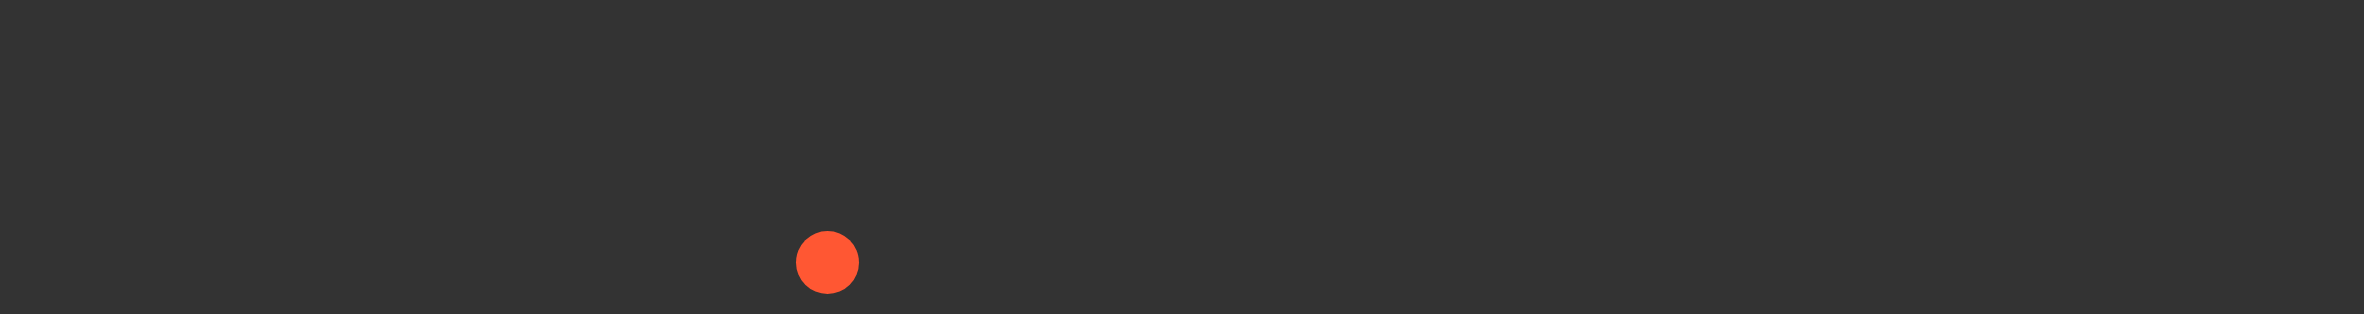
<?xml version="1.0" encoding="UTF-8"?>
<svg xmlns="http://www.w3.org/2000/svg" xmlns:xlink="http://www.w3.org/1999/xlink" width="2364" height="314">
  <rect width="100%" height="100%" fill="#333333" />
  <circle cx="827.5" cy="262.5" r="31.5" fill="#ff5733" />
</svg>
